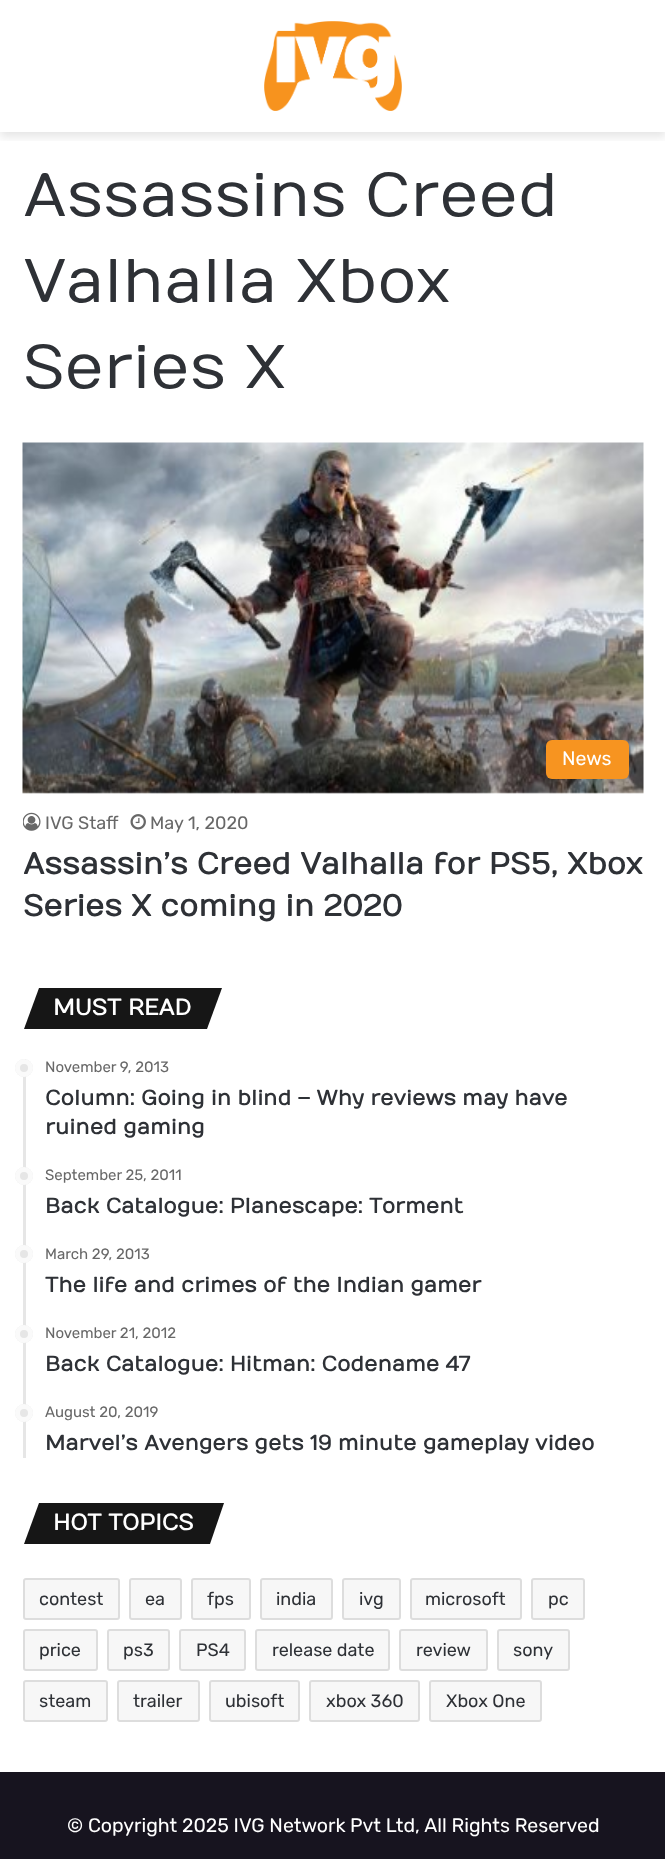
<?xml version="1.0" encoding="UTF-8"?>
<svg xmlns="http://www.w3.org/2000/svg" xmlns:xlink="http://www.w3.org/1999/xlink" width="665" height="1859">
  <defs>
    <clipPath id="clip1"><rect x="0" y="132" width="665" height="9" /></clipPath>
  </defs>
  <rect width="100%" height="100%" fill="#ffffff" />
  <g clip-path="url(#clip1)">
    <rect y="5" width="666" height="132" fill="#000000" fill-opacity="0.1" filter="blur(5px)" />
  </g>
  <image x="264" y="21" width="138" height="90" xlink:href="image1.png" />
  <image x="22" y="442" width="622" height="352" xlink:href="image2.png" />
  <rect x="546" y="740" width="83" height="39" rx="6" fill="#f79420" />
  <image x="23" y="812" width="18" height="19" xlink:href="image3.png" />
  <image x="130" y="814" width="16" height="16" xlink:href="image4.png" />
  <path d="M 39 988 h 183 l -15 41 h -183 z" fill="#161616" />
  <rect x="23" y="1059" width="3" height="399" fill="#e6e6e6" />
  <circle cx="24" cy="1068" r="9" fill="#e6e6e6" />
  <circle cx="24" cy="1068" r="6.5" fill="none" stroke="#ffffff" stroke-opacity="0.8" stroke-width="5" />
  <circle cx="24" cy="1176" r="9" fill="#e6e6e6" />
  <circle cx="24" cy="1176" r="6.5" fill="none" stroke="#ffffff" stroke-opacity="0.8" stroke-width="5" />
  <circle cx="24" cy="1254" r="9" fill="#e6e6e6" />
  <circle cx="24" cy="1254" r="6.5" fill="none" stroke="#ffffff" stroke-opacity="0.8" stroke-width="5" />
  <circle cx="24" cy="1334" r="9" fill="#e6e6e6" />
  <circle cx="24" cy="1334" r="6.5" fill="none" stroke="#ffffff" stroke-opacity="0.8" stroke-width="5" />
  <circle cx="24" cy="1413" r="9" fill="#e6e6e6" />
  <circle cx="24" cy="1413" r="6.5" fill="none" stroke="#ffffff" stroke-opacity="0.8" stroke-width="5" />
  <path d="M 39 1503 h 185 l -14 41 h -186 z" fill="#161616" />
  <rect x="23" y="1578" width="97" height="42" rx="3" fill="#f7f7f7" />
  <rect x="24" y="1579" width="95" height="40" rx="2" fill="none" stroke="#030303" stroke-opacity="0.1" stroke-width="2" />
  <rect x="129" y="1578" width="53" height="42" rx="3" fill="#f7f7f7" />
  <rect x="130" y="1579" width="51" height="40" rx="2" fill="none" stroke="#030303" stroke-opacity="0.1" stroke-width="2" />
  <rect x="191" y="1578" width="60" height="42" rx="3" fill="#f7f7f7" />
  <rect x="192" y="1579" width="58" height="40" rx="2" fill="none" stroke="#030303" stroke-opacity="0.1" stroke-width="2" />
  <rect x="260" y="1578" width="73" height="42" rx="3" fill="#f7f7f7" />
  <rect x="261" y="1579" width="71" height="40" rx="2" fill="none" stroke="#030303" stroke-opacity="0.1" stroke-width="2" />
  <rect x="342" y="1578" width="59" height="42" rx="3" fill="#f7f7f7" />
  <rect x="343" y="1579" width="57" height="40" rx="2" fill="none" stroke="#030303" stroke-opacity="0.1" stroke-width="2" />
  <rect x="410" y="1578" width="112" height="42" rx="3" fill="#f7f7f7" />
  <rect x="411" y="1579" width="110" height="40" rx="2" fill="none" stroke="#030303" stroke-opacity="0.1" stroke-width="2" />
  <rect x="531" y="1578" width="54" height="42" rx="3" fill="#f7f7f7" />
  <rect x="532" y="1579" width="52" height="40" rx="2" fill="none" stroke="#030303" stroke-opacity="0.1" stroke-width="2" />
  <rect x="23" y="1629" width="75" height="42" rx="3" fill="#f7f7f7" />
  <rect x="24" y="1630" width="73" height="40" rx="2" fill="none" stroke="#030303" stroke-opacity="0.1" stroke-width="2" />
  <rect x="107" y="1629" width="63" height="42" rx="3" fill="#f7f7f7" />
  <rect x="108" y="1630" width="61" height="40" rx="2" fill="none" stroke="#030303" stroke-opacity="0.1" stroke-width="2" />
  <rect x="179" y="1629" width="67" height="42" rx="3" fill="#f7f7f7" />
  <rect x="180" y="1630" width="65" height="40" rx="2" fill="none" stroke="#030303" stroke-opacity="0.1" stroke-width="2" />
  <rect x="255" y="1629" width="135" height="42" rx="3" fill="#f7f7f7" />
  <rect x="256" y="1630" width="133" height="40" rx="2" fill="none" stroke="#030303" stroke-opacity="0.1" stroke-width="2" />
  <rect x="399" y="1629" width="89" height="42" rx="3" fill="#f7f7f7" />
  <rect x="400" y="1630" width="87" height="40" rx="2" fill="none" stroke="#030303" stroke-opacity="0.1" stroke-width="2" />
  <rect x="497" y="1629" width="73" height="42" rx="3" fill="#f7f7f7" />
  <rect x="498" y="1630" width="71" height="40" rx="2" fill="none" stroke="#030303" stroke-opacity="0.1" stroke-width="2" />
  <rect x="23" y="1680" width="85" height="42" rx="3" fill="#f7f7f7" />
  <rect x="24" y="1681" width="83" height="40" rx="2" fill="none" stroke="#030303" stroke-opacity="0.1" stroke-width="2" />
  <rect x="117" y="1680" width="83" height="42" rx="3" fill="#f7f7f7" />
  <rect x="118" y="1681" width="81" height="40" rx="2" fill="none" stroke="#030303" stroke-opacity="0.1" stroke-width="2" />
  <rect x="209" y="1680" width="91" height="42" rx="3" fill="#f7f7f7" />
  <rect x="210" y="1681" width="89" height="40" rx="2" fill="none" stroke="#030303" stroke-opacity="0.1" stroke-width="2" />
  <rect x="309" y="1680" width="111" height="42" rx="3" fill="#f7f7f7" />
  <rect x="310" y="1681" width="109" height="40" rx="2" fill="none" stroke="#030303" stroke-opacity="0.1" stroke-width="2" />
  <rect x="429" y="1680" width="113" height="42" rx="3" fill="#f7f7f7" />
  <rect x="430" y="1681" width="111" height="40" rx="2" fill="none" stroke="#030303" stroke-opacity="0.1" stroke-width="2" />
  <rect y="1772" width="665" height="87" fill="#17141f" />
  <text x="23" y="216" style="font-family: Numans; font-size: 61.5px; fill: #2e3136">Assassins Creed</text>
  <text x="23" y="302" style="font-family: Numans; font-size: 61.5px; fill: #2e3136">Valhalla Xbox</text>
  <text x="23" y="388" style="font-family: Numans; font-size: 61.5px; fill: #2e3136">Series X</text>
  <text x="562" y="765" style="font-family: Rubik; font-size: 19.5px; font-weight: 300; fill: #ffffff">News</text>
  <text x="45" y="829" style="font-family: Rubik; font-size: 18px; font-weight: 300; fill: #686868">IVG Staff</text>
  <text x="150" y="829" style="font-family: Rubik; font-size: 18px; font-weight: 300; fill: #686868">May 1, 2020</text>
  <text x="23" y="874" style="font-family: Numans; font-size: 30px; font-weight: bold; fill: #2e3136">Assassin’s Creed Valhalla for PS5, Xbox</text>
  <text x="23" y="916" style="font-family: Numans; font-size: 30px; font-weight: bold; fill: #2e3136">Series X coming in 2020</text>
  <text x="53" y="1015" style="font-family: Numans; font-size: 22.5px; font-weight: bold; fill: #ffffff">MUST READ</text>
  <text x="45" y="1072" style="font-family: Rubik; font-size: 15px; font-weight: 300; fill: #686868">November 9, 2013</text>
  <text x="45" y="1105" style="font-family: Numans; font-size: 21px; font-weight: bold; fill: #2e3136">Column: Going in blind – Why reviews may have</text>
  <text x="45" y="1134" style="font-family: Numans; font-size: 21px; font-weight: bold; fill: #2e3136">ruined gaming</text>
  <text x="45" y="1180" style="font-family: Rubik; font-size: 15px; font-weight: 300; fill: #686868">September 25, 2011</text>
  <text x="45" y="1213" style="font-family: Numans; font-size: 21px; font-weight: bold; fill: #2e3136">Back Catalogue: Planescape: Torment</text>
  <text x="45" y="1259" style="font-family: Rubik; font-size: 15px; font-weight: 300; fill: #686868">March 29, 2013</text>
  <text x="45" y="1292" style="font-family: Numans; font-size: 21px; font-weight: bold; fill: #2e3136">The life and crimes of the Indian gamer</text>
  <text x="45" y="1338" style="font-family: Rubik; font-size: 15px; font-weight: 300; fill: #686868">November 21, 2012</text>
  <text x="45" y="1371" style="font-family: Numans; font-size: 21px; font-weight: bold; fill: #2e3136">Back Catalogue: Hitman: Codename 47</text>
  <text x="45" y="1417" style="font-family: Rubik; font-size: 15px; font-weight: 300; fill: #686868">August 20, 2019</text>
  <text x="45" y="1450" style="font-family: Numans; font-size: 21px; font-weight: bold; fill: #2e3136">Marvel’s Avengers gets 19 minute gameplay video</text>
  <text x="53" y="1530" style="font-family: Numans; font-size: 22.5px; font-weight: bold; fill: #ffffff">HOT TOPICS</text>
  <text x="39" y="1605" style="font-family: Rubik; font-size: 18px; font-weight: 300; fill: #2e3136">contest</text>
  <text x="145" y="1605" style="font-family: Rubik; font-size: 18px; font-weight: 300; fill: #2e3136">ea</text>
  <text x="207" y="1605" style="font-family: Rubik; font-size: 18px; font-weight: 300; fill: #2e3136">fps</text>
  <text x="276" y="1605" style="font-family: Rubik; font-size: 18px; font-weight: 300; fill: #2e3136">india</text>
  <text x="359" y="1605" style="font-family: Rubik; font-size: 18px; font-weight: 300; fill: #2e3136">ivg</text>
  <text x="425" y="1605" style="font-family: Rubik; font-size: 18px; font-weight: 300; fill: #2e3136">microsoft</text>
  <text x="548" y="1605" style="font-family: Rubik; font-size: 18px; font-weight: 300; fill: #2e3136">pc</text>
  <text x="39" y="1656" style="font-family: Rubik; font-size: 18px; font-weight: 300; fill: #2e3136">price</text>
  <text x="123" y="1656" style="font-family: Rubik; font-size: 18px; font-weight: 300; fill: #2e3136">ps3</text>
  <text x="196" y="1656" style="font-family: Rubik; font-size: 18px; font-weight: 300; fill: #2e3136">PS4</text>
  <text x="272" y="1656" style="font-family: Rubik; font-size: 18px; font-weight: 300; fill: #2e3136">release date</text>
  <text x="416" y="1656" style="font-family: Rubik; font-size: 18px; font-weight: 300; fill: #2e3136">review</text>
  <text x="513" y="1656" style="font-family: Rubik; font-size: 18px; font-weight: 300; fill: #2e3136">sony</text>
  <text x="39" y="1707" style="font-family: Rubik; font-size: 18px; font-weight: 300; fill: #2e3136">steam</text>
  <text x="133" y="1707" style="font-family: Rubik; font-size: 18px; font-weight: 300; fill: #2e3136">trailer</text>
  <text x="225" y="1707" style="font-family: Rubik; font-size: 18px; font-weight: 300; fill: #2e3136">ubisoft</text>
  <text x="326" y="1707" style="font-family: Rubik; font-size: 18px; font-weight: 300; fill: #2e3136">xbox 360</text>
  <text x="446" y="1707" style="font-family: Rubik; font-size: 18px; font-weight: 300; fill: #2e3136">Xbox One</text>
  <text x="67" y="1832" style="font-family: Rubik; font-size: 19.5px; font-weight: 300; fill: #ffffff">© Copyright 2025 IVG Network Pvt Ltd, All Rights Reserved</text>
</svg>
